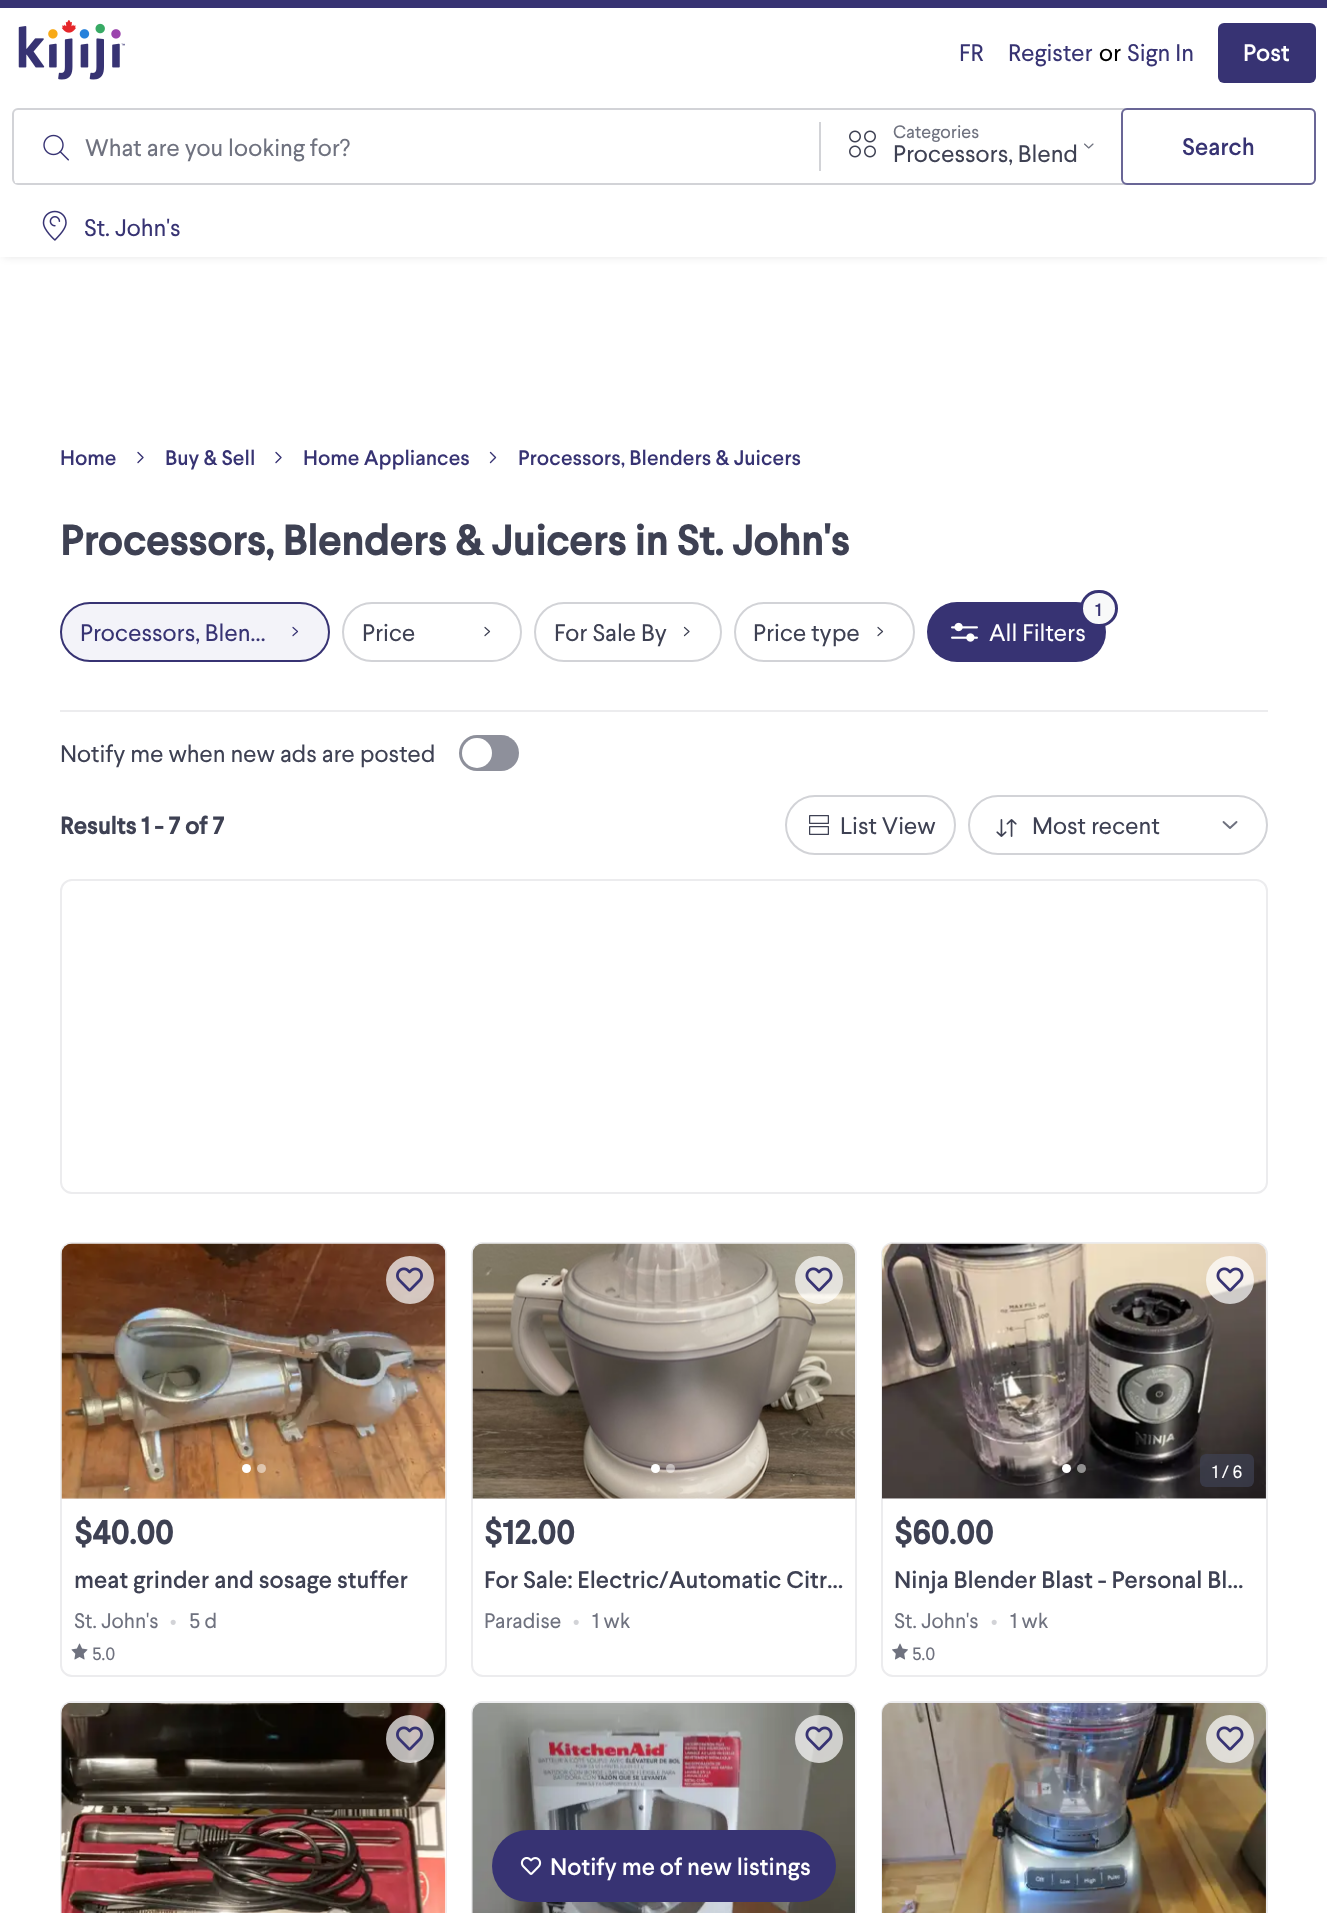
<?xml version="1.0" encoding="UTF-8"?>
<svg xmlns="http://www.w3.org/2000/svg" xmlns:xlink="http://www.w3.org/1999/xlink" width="1327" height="1913">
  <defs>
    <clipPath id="clip1"><path d="M 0 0 h 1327 v 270 h -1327 z m 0 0 h 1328 v 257 h -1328 z" clip-rule="evenodd" /></clipPath>
  </defs>
  <rect width="100%" height="100%" fill="#ffffff" />
  <g clip-path="url(#clip1)">
    <rect x="3" y="6" width="1322" height="251" fill="#000000" fill-opacity="0.1" filter="blur(4px)" />
  </g>
  <rect width="1327" height="8" fill="#373373" />
  <image x="18" y="20" width="107" height="60" xlink:href="image1.png" />
  <rect x="1218" y="23" width="98" height="60" rx="6" fill="#373373" />
  <rect x="13" y="109" width="1302" height="75" rx="5" fill="none" stroke="#d2d3d7" stroke-width="2" />
  <rect x="15" y="111" width="2" height="72" fill="#ffffff" />
  <image x="43" y="134" width="26" height="27" xlink:href="image2.png" />
  <rect x="819" y="122" width="2" height="49" fill="#d2d3d7" />
  <image x="849" y="130" width="27" height="28" xlink:href="image3.png" />
  <image x="1084" y="143" width="10" height="6" xlink:href="image4.png" />
  <rect x="1122" y="109" width="193" height="75" rx="5" fill="#ffffff" stroke="#696696" stroke-width="2" />
  <image x="42" y="210" width="25" height="31" xlink:href="image5.png" />
  <path d="M 138 452.5 l 5 5 m 0 0 l -5 5" fill="none" stroke="#373373" stroke-width="1.4" stroke-linecap="round" stroke-linejoin="round" />
  <path d="M 276 452.5 l 5 5 m 0 0 l -5 5" fill="none" stroke="#373373" stroke-width="1.4" stroke-linecap="round" stroke-linejoin="round" />
  <path d="M 490.5 452.5 l 5 5 m 0 0 l -5 5" fill="none" stroke="#373373" stroke-width="1.4" stroke-linecap="round" stroke-linejoin="round" />
  <rect x="61" y="603" width="268" height="58" rx="29" fill="#f3f3f9" stroke="#373373" stroke-width="2" />
  <path d="M 293 627.5 l 4.5 4 m 0 0 l -4.5 4" fill="none" stroke="#373373" stroke-width="1.2" stroke-linecap="round" stroke-linejoin="round" />
  <rect x="343" y="603" width="178" height="58" rx="29" fill="none" stroke="#d2d3d7" stroke-width="2" />
  <path d="M 485 627.5 l 4.5 4 m 0 0 l -4.5 4" fill="none" stroke="#3e4153" stroke-width="1.2" stroke-linecap="round" stroke-linejoin="round" />
  <rect x="535" y="603" width="186" height="58" rx="29" fill="none" stroke="#d2d3d7" stroke-width="2" />
  <path d="M 684.5 627.5 l 4.5 4 m 0 0 l -4.5 4" fill="none" stroke="#3e4153" stroke-width="1.2" stroke-linecap="round" stroke-linejoin="round" />
  <rect x="735" y="603" width="179" height="58" rx="29" fill="none" stroke="#d2d3d7" stroke-width="2" />
  <path d="M 878 627.5 l 4.5 4 m 0 0 l -4.5 4" fill="none" stroke="#3e4153" stroke-width="1.2" stroke-linecap="round" stroke-linejoin="round" />
  <rect x="927" y="602" width="179" height="60" rx="30" fill="#373373" />
  <image x="951" y="622" width="27" height="20" xlink:href="image6.png" />
  <rect x="60" y="710" width="1208" height="2" fill="#ececee" />
  <rect x="459" y="735" width="60" height="36" rx="18" fill="#8e909b" />
  <circle cx="477" cy="753" r="15" fill="#ffffff" />
  <rect x="786" y="796" width="169" height="58" rx="29" fill="none" stroke="#d2d3d7" stroke-width="2" />
  <image x="809" y="815" width="20" height="20" xlink:href="image7.png" />
  <rect x="969" y="796" width="298" height="58" rx="29" fill="none" stroke="#d2d3d7" stroke-width="2" />
  <image x="996" y="819" width="21" height="18" xlink:href="image8.png" />
  <image x="1222" y="821" width="16" height="8" xlink:href="image9.png" />
  <rect x="61" y="880" width="1206" height="313" rx="11" fill="none" stroke="#ececee" stroke-width="2" />
  <rect x="61" y="1243" width="385" height="433" rx="11" fill="none" stroke="#ececee" stroke-width="2" />
  <path d="M 73 1244 h 362 c 6 0 11 5 11 11 v 244 h -384 v -244 c 0 -6 5 -11 11 -11 z" fill="#ffffff" />
  <image x="61" y="1243" width="385" height="256" xlink:href="image10.png" />
  <circle cx="246.5" cy="1468.5" r="4.5" fill="#ffffff" />
  <circle cx="261.5" cy="1468.5" r="4.5" fill="#ffffff" fill-opacity="0.5" />
  <circle cx="410" cy="1280" r="24" fill="#ffffff" fill-opacity="0.7" />
  <image x="396" y="1267" width="27" height="25" xlink:href="image11.png" />
  <image x="71" y="1643" width="17" height="17" xlink:href="image12.png" />
  <rect x="472" y="1243" width="384" height="433" rx="11" fill="none" stroke="#ececee" stroke-width="2" />
  <image x="472" y="1243" width="383" height="256" xlink:href="image13.png" />
  <circle cx="655.5" cy="1468.5" r="4.5" fill="#ffffff" />
  <circle cx="670.5" cy="1468.5" r="4.5" fill="#ffffff" fill-opacity="0.5" />
  <circle cx="819" cy="1280" r="24" fill="#ffffff" fill-opacity="0.7" />
  <image x="805" y="1267" width="28" height="25" xlink:href="image14.png" />
  <rect x="882" y="1243" width="385" height="433" rx="11" fill="none" stroke="#ececee" stroke-width="2" />
  <path d="M 893 1244 h 362 c 6 0 11 5 11 11 v 244 h -384 v -244 c 0 -6 5 -11 11 -11 z" fill="#ffffff" />
  <image x="882" y="1243" width="384" height="256" xlink:href="image16.png" />
  <circle cx="1230" cy="1280" r="24" fill="#ffffff" fill-opacity="0.7" />
  <image x="1216" y="1267" width="28" height="25" xlink:href="image15.png" />
  <circle cx="1066.5" cy="1468.5" r="4.5" fill="#ffffff" />
  <circle cx="1081.5" cy="1468.5" r="4.5" fill="#ffffff" fill-opacity="0.5" />
  <rect x="1200" y="1454" width="54" height="33" rx="6" fill="#3e4153" fill-opacity="0.7" />
  <image x="892" y="1643" width="16" height="17" xlink:href="image17.png" />
  <rect x="61" y="1702" width="385" height="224" rx="11" fill="none" stroke="#ececee" stroke-width="2" />
  <path d="M 73 1703 h 362 c 6 0 11 5 11 11 v 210 h -384 v -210 c 0 -6 5 -11 11 -11 z" fill="#ffffff" />
  <image x="61" y="1703" width="385" height="210" xlink:href="image18.png" />
  <circle cx="410" cy="1739" r="24" fill="#ffffff" fill-opacity="0.7" />
  <image x="396" y="1726" width="27" height="25" xlink:href="image19.png" />
  <rect x="472" y="1702" width="384" height="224" rx="11" fill="none" stroke="#ececee" stroke-width="2" />
  <image x="472" y="1703" width="383" height="210" xlink:href="image20.png" />
  <circle cx="819" cy="1739" r="24" fill="#ffffff" fill-opacity="0.7" />
  <image x="805" y="1726" width="28" height="25" xlink:href="image21.png" />
  <rect x="882" y="1702" width="385" height="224" rx="11" fill="none" stroke="#ececee" stroke-width="2" />
  <image x="882" y="1703" width="384" height="210" xlink:href="image22.png" />
  <circle cx="1230" cy="1739" r="24" fill="#ffffff" fill-opacity="0.7" />
  <image x="1216" y="1726" width="28" height="25" xlink:href="image23.png" />
  <rect x="492" y="1830" width="344" height="72" rx="36" fill="#373373" />
  <image x="520" y="1857" width="22" height="18" xlink:href="image24.png" />
  <text x="959" y="61" style="font-family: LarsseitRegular; font-size: 24px; fill: #373373">FR</text>
  <text x="1008" y="61" style="font-family: LarsseitRegular; font-size: 24px; fill: #373373">Register</text>
  <text x="1099" y="61" style="font-family: LarsseitRegular; font-size: 24px; fill: #000000">or</text>
  <text x="1127" y="61" style="font-family: LarsseitRegular; font-size: 24px; fill: #373373">Sign In</text>
  <text x="1243" y="61" style="font-family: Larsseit; font-size: 24px; font-weight: 500; fill: #ffffff">Post</text>
  <text x="85" y="156" style="font-family: LarsseitRegular; font-size: 24px; fill: #6f727f">What are you looking for?</text>
  <text x="893" y="138" style="font-family: LarsseitRegular; font-size: 18px; fill: #6f727f">Categories</text>
  <text x="893" y="162" style="font-family: LarsseitRegular; font-size: 24px; fill: #3e4153">Processors, Blend</text>
  <text x="1182" y="155" style="font-family: Larsseit; font-size: 24px; font-weight: 500; fill: #373373">Search</text>
  <text x="84" y="236" style="font-family: LarsseitRegular; font-size: 24px; fill: #373373">St. John's</text>
  <text x="60" y="465" style="font-family: Larsseit; font-size: 21px; font-weight: 500; fill: #373373">Home</text>
  <text x="165" y="465" style="font-family: Larsseit; font-size: 21px; font-weight: 500; fill: #373373">Buy &amp; Sell</text>
  <text x="303" y="465" style="font-family: Larsseit; font-size: 21px; font-weight: 500; fill: #373373">Home Appliances</text>
  <text x="518" y="465" style="font-family: Larsseit; font-size: 21px; font-weight: 500; fill: #373373">Processors, Blenders &amp; Juicers</text>
  <text x="60" y="555" style="font-family: Larsseit; font-size: 42px; font-weight: bold; fill: #3e4153">Processors, Blenders &amp; Juicers in St. John's</text>
  <text x="80" y="641" style="font-family: LarsseitRegular; font-size: 24px; fill: #373373">Processors, Blen…</text>
  <text x="362" y="641" style="font-family: LarsseitRegular; font-size: 24px; fill: #3e4153">Price</text>
  <text x="554" y="641" style="font-family: LarsseitRegular; font-size: 24px; fill: #3e4153">For Sale By</text>
  <text x="753" y="641" style="font-family: LarsseitRegular; font-size: 24px; fill: #3e4153">Price type</text>
  <text x="989" y="641" style="font-family: LarsseitRegular; font-size: 24px; fill: #ffffff">All Filters</text>
  <rect x="1081.5" y="591.5" width="35" height="34" rx="17" fill="#f8f9f9" stroke="#373373" stroke-width="3" />
  <text x="1095" y="616" style="font-family: Larsseit; font-size: 18px; font-weight: 500; fill: #373373">1</text>
  <text x="60" y="762" style="font-family: LarsseitRegular; font-size: 24px; fill: #3e4153">Notify me when new ads are posted</text>
  <text x="60" y="834" style="font-family: Larsseit; font-size: 24px; font-weight: bold; fill: #3e4153">Results 1 - 7 of 7</text>
  <text x="840" y="834" style="font-family: LarsseitRegular; font-size: 24px; fill: #3e4153">List View</text>
  <text x="1032" y="834" style="font-family: LarsseitRegular; font-size: 24px; fill: #3e4153">Most recent</text>
  <text x="74" y="1544" style="font-family: Larsseit; font-size: 33px; font-weight: bold; fill: #3e4153">$40.00</text>
  <text x="74" y="1588" style="font-family: Larsseit; font-size: 24px; font-weight: 500; fill: #3e4153">meat grinder and sosage stuffer</text>
  <text x="74" y="1628" style="font-family: LarsseitRegular; font-size: 21px; fill: #6f727f">St. John's</text>
  <text x="170" y="1627" style="font-family: LarsseitRegular; font-size: 18px; fill: #d2d3d7">•</text>
  <text x="189" y="1628" style="font-family: LarsseitRegular; font-size: 21px; fill: #6f727f">5 d</text>
  <text x="92" y="1660" style="font-family: LarsseitRegular; font-size: 18px; fill: #6f727f">5.0</text>
  <text x="484" y="1544" style="font-family: Larsseit; font-size: 33px; font-weight: bold; fill: #3e4153">$12.00</text>
  <text x="484" y="1588" style="font-family: Larsseit; font-size: 24px; font-weight: 500; fill: #3e4153">For Sale: Electric/Automatic Citr…</text>
  <text x="484" y="1628" style="font-family: LarsseitRegular; font-size: 21px; fill: #6f727f">Paradise</text>
  <text x="573" y="1627" style="font-family: LarsseitRegular; font-size: 18px; fill: #d2d3d7">•</text>
  <text x="592" y="1628" style="font-family: LarsseitRegular; font-size: 21px; fill: #6f727f">1 wk</text>
  <text x="1212" y="1478" style="font-family: LarsseitRegular; font-size: 18px; fill: #ffffff">1 / 6</text>
  <text x="894" y="1544" style="font-family: Larsseit; font-size: 33px; font-weight: bold; fill: #3e4153">$60.00</text>
  <text x="894" y="1588" style="font-family: Larsseit; font-size: 24px; font-weight: 500; fill: #3e4153">Ninja Blender Blast - Personal Bl…</text>
  <text x="894" y="1628" style="font-family: LarsseitRegular; font-size: 21px; fill: #6f727f">St. John's</text>
  <text x="991" y="1627" style="font-family: LarsseitRegular; font-size: 18px; fill: #d2d3d7">•</text>
  <text x="1010" y="1628" style="font-family: LarsseitRegular; font-size: 21px; fill: #6f727f">1 wk</text>
  <text x="912" y="1660" style="font-family: LarsseitRegular; font-size: 18px; fill: #6f727f">5.0</text>
  <text x="550" y="1875" style="font-family: Larsseit; font-size: 24px; font-weight: 500; fill: #ffffff">Notify me of new listings</text>
</svg>
